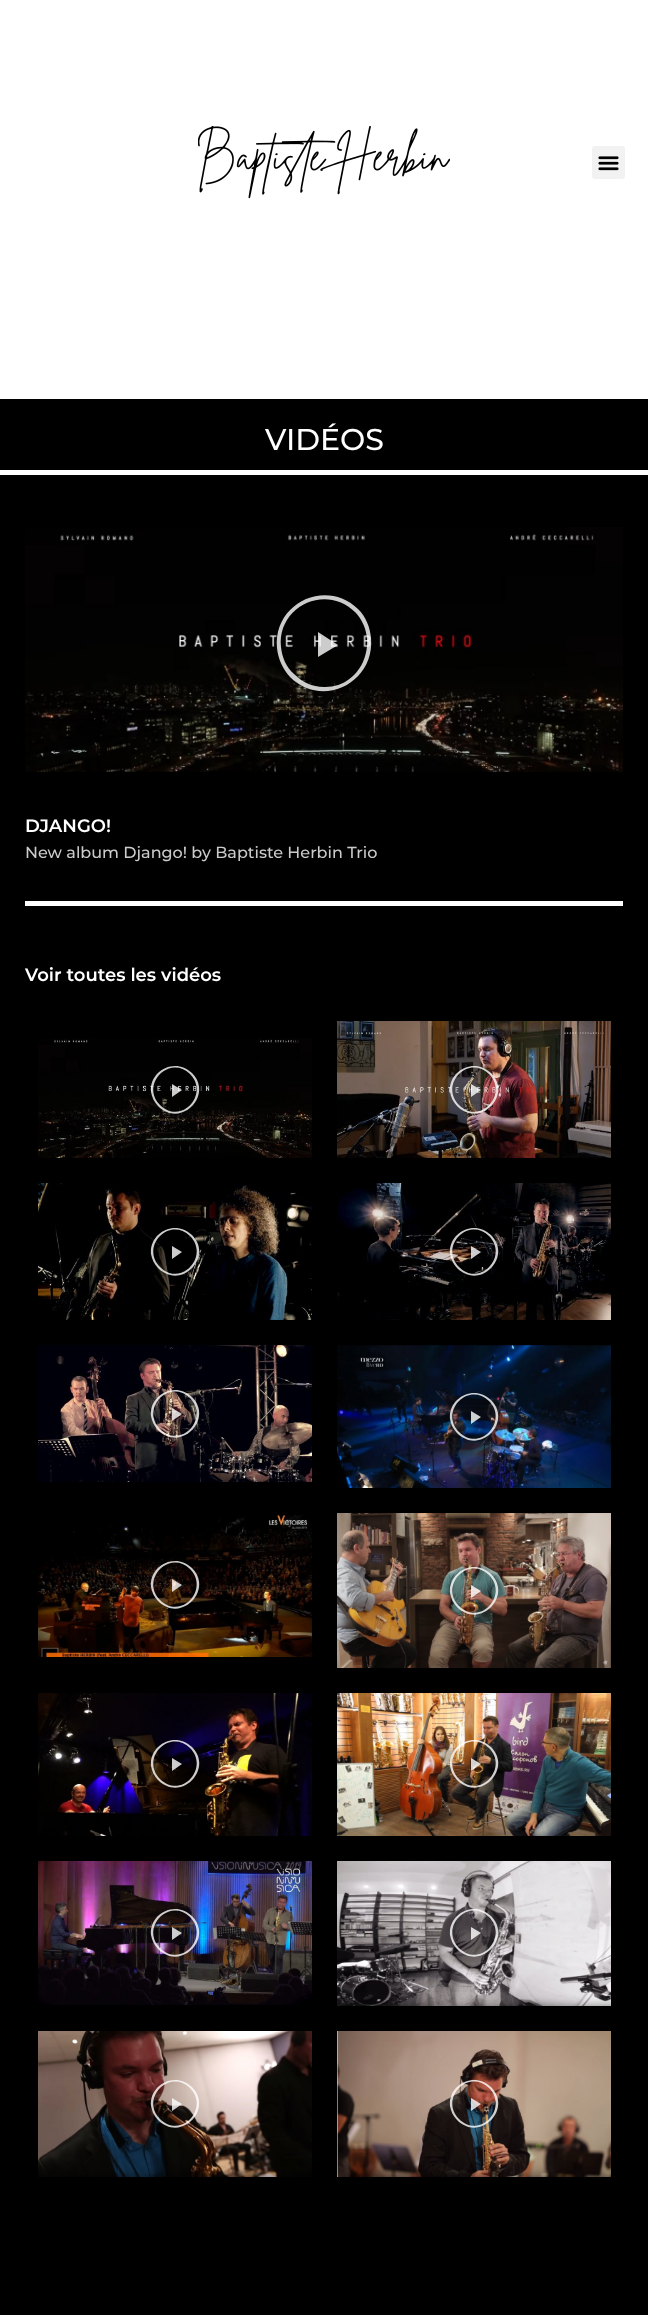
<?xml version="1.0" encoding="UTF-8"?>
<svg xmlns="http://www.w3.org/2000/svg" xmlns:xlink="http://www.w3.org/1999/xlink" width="648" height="2315">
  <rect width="100%" height="100%" fill="#ffffff" />
  <image x="198" y="126" width="252" height="73" xlink:href="image1.png" />
  <rect x="592" y="146" width="33" height="33" rx="3" fill="#f2f2f2" />
  <image x="598" y="156" width="21" height="15" xlink:href="image2.png" />
  <rect y="399" width="648" height="1916" fill="#000000" />
  <rect y="470" width="648" height="5" fill="#ffffff" />
  <image x="25" y="527" width="598" height="245" xlink:href="image3.png" />
  <path d="M 358 609 c -32 -31 -85 -6 -81 39 c 1 11 6 21 13 29 c 32 32 85 6 81 -39 c -1 -11 -5 -21 -13 -29 z m -3 3 c 26 27 8 76 -31 75 c -12 0 -22 -5 -30 -13 c -8 -7 -12 -17 -13 -27 c -4 -40 44 -64 74 -35 z m -37 20 v 25 l 20 -12 z" fill="#ffffff" fill-opacity="0.8" />
  <rect x="25" y="901" width="598" height="5" fill="#ffffff" />
  <image x="38" y="1038" width="274" height="120" xlink:href="image4.png" />
  <path d="M 192 1073 c -16 -16 -43 -3 -41 19 c 1 5 3 10 7 14 c 23 23 56 -11 34 -33 z m -2 1 c 20 20 -9 52 -30 31 c -20 -20 9 -51 30 -31 z m -18 10 v 13 l 10 -7 z" fill="#ffffff" fill-opacity="0.8" />
  <image x="337" y="1021" width="274" height="137" xlink:href="image5.png" />
  <path d="M 491 1073 c -16 -16 -43 -3 -41 19 c 1 5 3 10 7 14 c 23 23 56 -11 34 -33 z m -2 1 c 20 20 -9 52 -30 31 c -20 -20 9 -51 30 -31 z m -18 10 v 13 l 10 -7 z" fill="#ffffff" fill-opacity="0.8" />
  <image x="38" y="1183" width="274" height="137" xlink:href="image6.png" />
  <path d="M 192 1235 c -16 -16 -43 -3 -41 19 c 1 5 3 10 7 14 c 23 23 56 -11 34 -33 z m -2 1 c 20 20 -9 52 -30 31 c -20 -20 9 -51 30 -31 z m -18 10 v 13 l 10 -7 z" fill="#ffffff" fill-opacity="0.8" />
  <image x="337" y="1183" width="274" height="137" xlink:href="image7.png" />
  <path d="M 491 1235 c -16 -16 -43 -3 -41 19 c 1 5 3 10 7 14 c 23 23 56 -11 34 -33 z m -2 1 c 20 20 -9 52 -30 31 c -20 -20 9 -51 30 -31 z m -18 10 v 13 l 10 -7 z" fill="#ffffff" fill-opacity="0.8" />
  <image x="38" y="1345" width="274" height="137" xlink:href="image8.png" />
  <path d="M 192 1397 c -16 -16 -43 -3 -41 19 c 1 5 3 10 7 14 c 23 23 56 -11 34 -33 z m -2 1 c 20 20 -9 52 -30 31 c -20 -20 9 -51 30 -31 z m -18 10 v 13 l 10 -7 z" fill="#ffffff" fill-opacity="0.8" />
  <image x="337" y="1345" width="274" height="143" xlink:href="image9.png" />
  <path d="M 491 1400 c -16 -16 -43 -3 -41 19 c 1 5 3 10 7 14 c 23 23 56 -11 34 -33 z m -2 1 c 20 20 -9 52 -30 31 c -20 -20 9 -51 30 -31 z m -18 10 v 13 l 10 -7 z" fill="#ffffff" fill-opacity="0.8" />
  <image x="38" y="1513" width="274" height="144" xlink:href="image10.png" />
  <path d="M 192 1568 c -16 -16 -43 -3 -41 19 c 1 5 3 10 7 14 c 23 23 56 -11 34 -33 z m -2 1 c 20 20 -9 52 -30 31 c -20 -20 9 -51 30 -31 z m -18 10 v 13 l 10 -7 z" fill="#ffffff" fill-opacity="0.8" />
  <image x="337" y="1513" width="274" height="155" xlink:href="image11.png" />
  <path d="M 491 1574 c -16 -16 -43 -3 -41 19 c 1 5 3 10 7 14 c 23 23 56 -11 34 -33 z m -2 1 c 20 20 -9 52 -30 31 c -20 -20 9 -51 30 -31 z m -18 10 v 13 l 10 -7 z" fill="#ffffff" fill-opacity="0.8" />
  <image x="38" y="1693" width="274" height="143" xlink:href="image12.png" />
  <path d="M 192 1747 c -16 -16 -43 -3 -41 19 c 1 5 3 10 7 14 c 23 23 56 -11 34 -33 z m -2 1 c 20 20 -9 52 -30 31 c -20 -20 9 -51 30 -31 z m -18 10 v 13 l 10 -7 z" fill="#ffffff" fill-opacity="0.8" />
  <image x="337" y="1693" width="274" height="143" xlink:href="image13.png" />
  <path d="M 491 1747 c -16 -16 -43 -3 -41 19 c 1 5 3 10 7 14 c 23 23 56 -11 34 -33 z m -2 1 c 20 20 -9 52 -30 31 c -20 -20 9 -51 30 -31 z m -18 10 v 13 l 10 -7 z" fill="#ffffff" fill-opacity="0.8" />
  <image x="38" y="1861" width="274" height="144" xlink:href="image14.png" />
  <path d="M 192 1916 c -16 -16 -43 -3 -41 19 c 1 5 3 10 7 14 c 23 23 56 -11 34 -33 z m -2 1 c 20 20 -9 52 -30 31 c -20 -20 9 -51 30 -31 z m -18 10 v 13 l 10 -7 z" fill="#ffffff" fill-opacity="0.8" />
  <image x="337" y="1861" width="274" height="145" xlink:href="image15.png" />
  <path d="M 491 1916 c -16 -16 -43 -3 -41 19 c 1 5 3 10 7 14 c 23 23 56 -11 34 -33 z m -2 1 c 20 20 -9 52 -30 31 c -20 -20 9 -51 30 -31 z m -18 10 v 13 l 10 -7 z" fill="#ffffff" fill-opacity="0.8" />
  <image x="38" y="2031" width="274" height="146" xlink:href="image16.png" />
  <path d="M 192 2087 c -16 -16 -43 -3 -41 19 c 1 5 3 10 7 14 c 23 23 56 -11 34 -33 z m -2 1 c 20 20 -9 52 -30 31 c -20 -20 9 -51 30 -31 z m -18 10 v 13 l 10 -7 z" fill="#ffffff" fill-opacity="0.8" />
  <image x="337" y="2031" width="274" height="146" xlink:href="image17.png" />
  <path d="M 491 2087 c -16 -16 -43 -3 -41 19 c 1 5 3 10 7 14 c 23 23 56 -11 34 -33 z m -2 1 c 20 20 -9 52 -30 31 c -20 -20 9 -51 30 -31 z m -18 10 v 13 l 10 -7 z" fill="#ffffff" fill-opacity="0.8" />
  <text x="265" y="450" style="font-family: Montserrat; font-size: 30px; font-weight: 500; fill: #ffffff">VIDÉOS</text>
  <text x="25" y="832" style="font-family: Montserrat; font-size: 18px; font-weight: 600; fill: #ffffff">DJANGO!</text>
  <text x="25" y="858" style="font-family: Montserrat; font-size: 16px; font-weight: 500; fill: #cbcbcb">New album Django! by Baptiste Herbin Trio</text>
  <text x="25" y="981" style="font-family: Montserrat; font-size: 18px; font-weight: 600; fill: #ffffff">Voir toutes les vidéos</text>
</svg>
